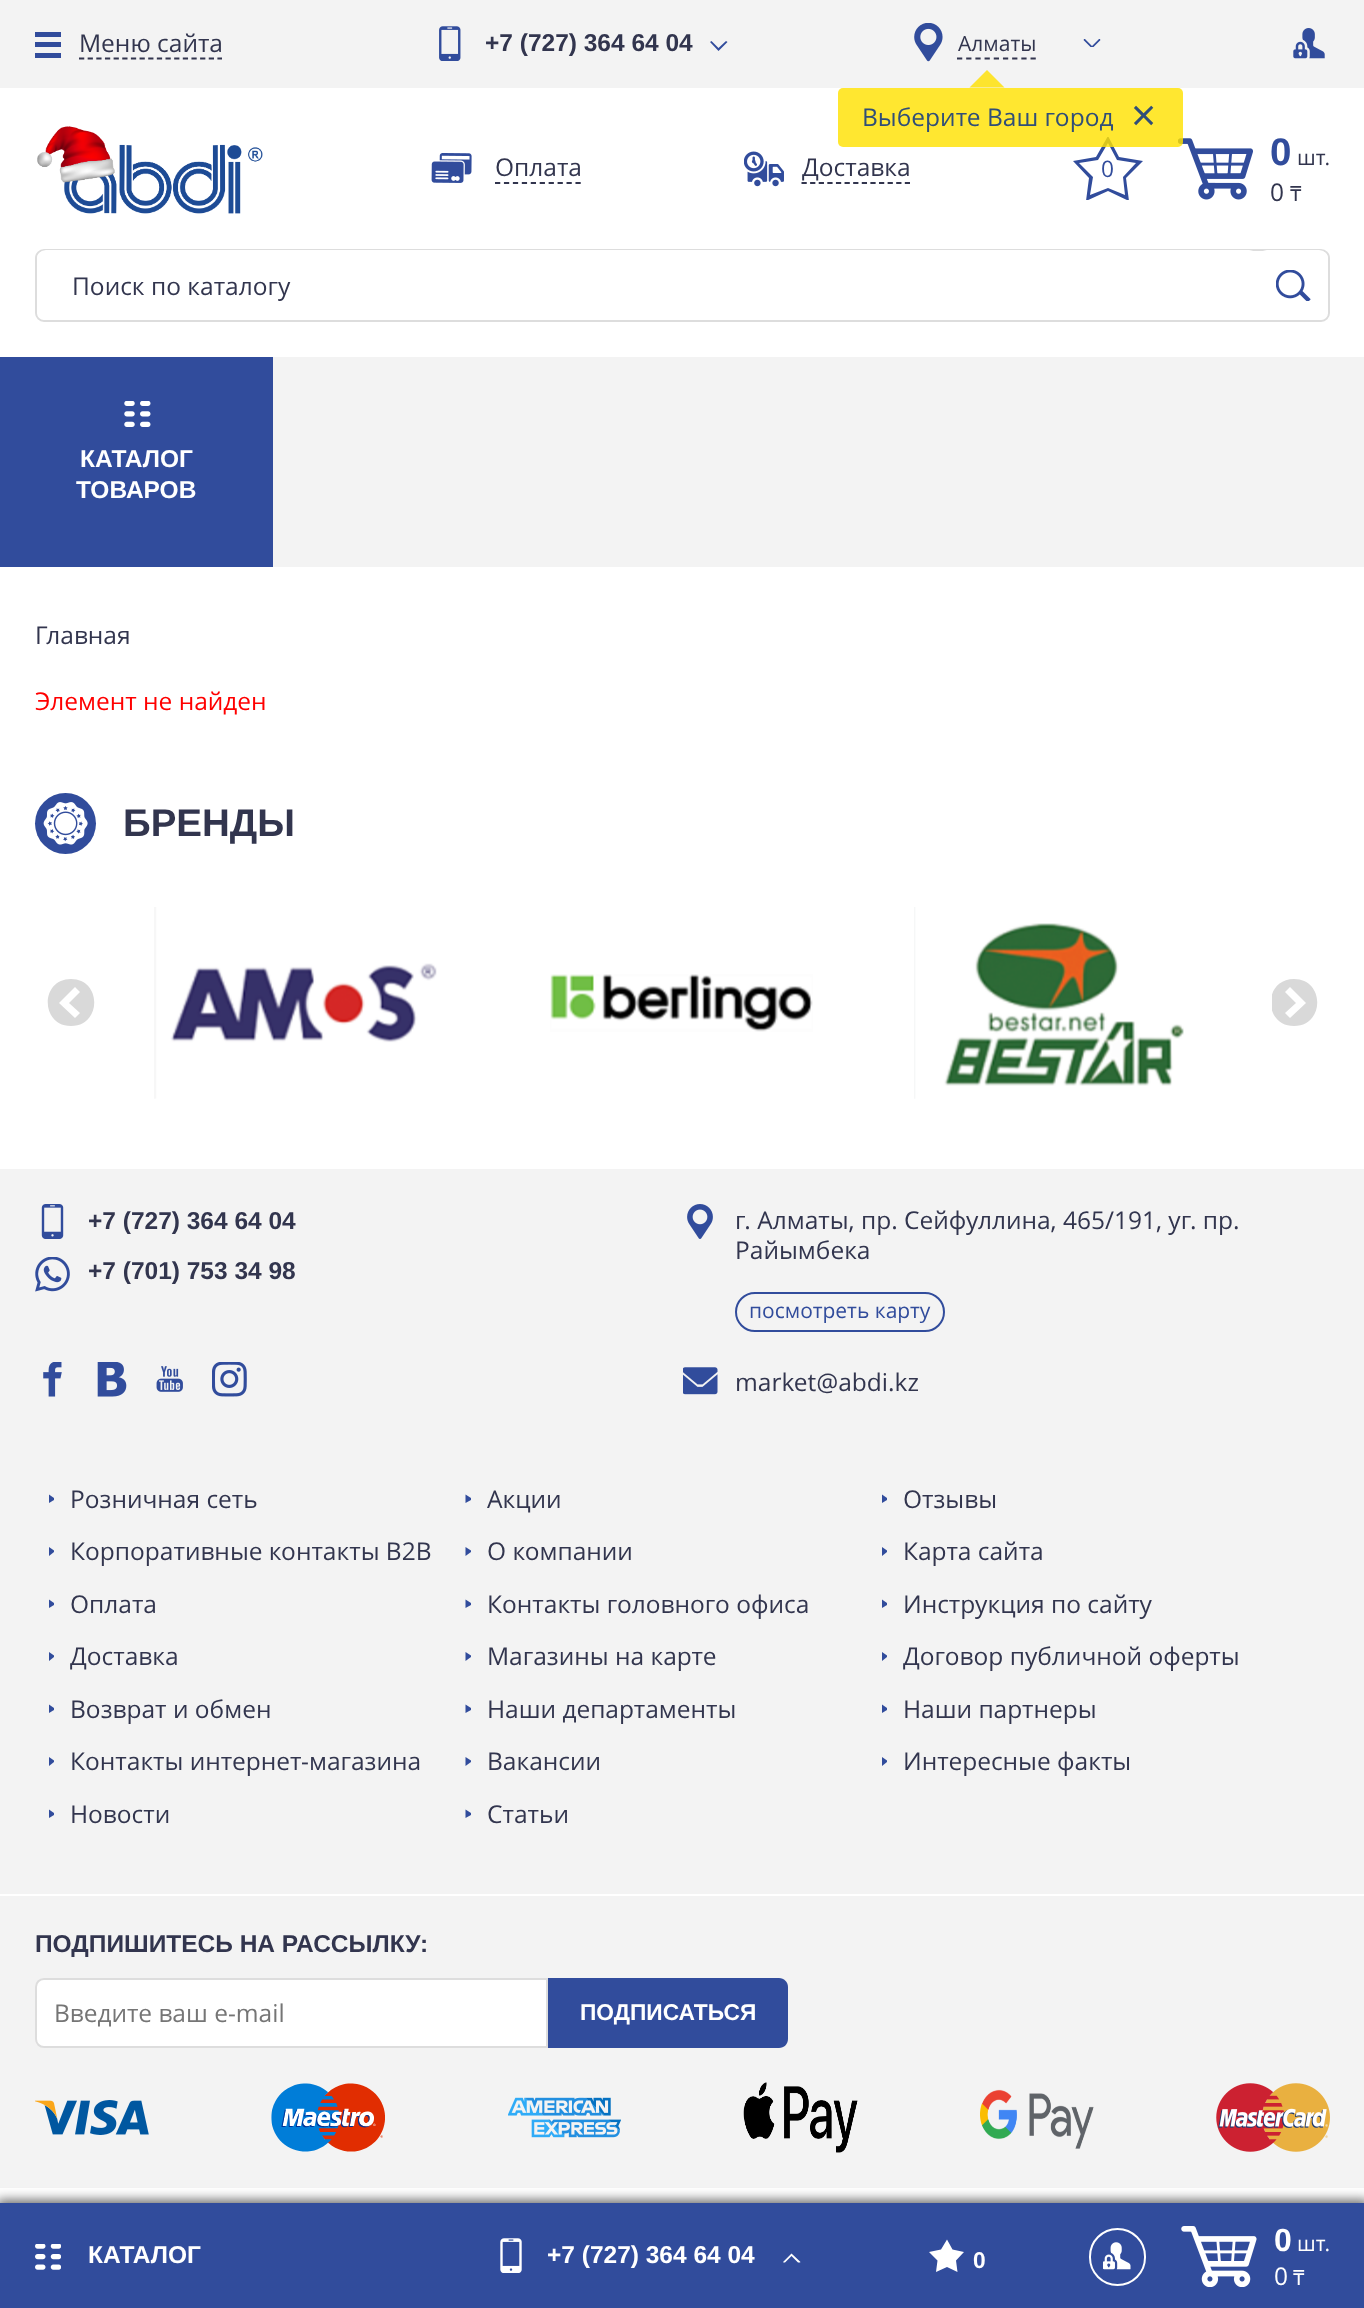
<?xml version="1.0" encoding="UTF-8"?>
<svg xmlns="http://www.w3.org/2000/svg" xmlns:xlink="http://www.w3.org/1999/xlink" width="1364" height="2308">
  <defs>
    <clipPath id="clip1"><rect x="1083" y="39" width="18" height="8" /></clipPath>
    <clipPath id="clip2"><rect x="1073" y="137" width="70" height="63" /></clipPath>
    <clipPath id="clip3"><rect x="1272" y="964" width="48" height="77" /></clipPath>
  </defs>
  <rect width="100%" height="100%" fill="#ffffff" />
  <rect width="1364" height="88" fill="#f3f3f3" />
  <rect x="35" y="42" width="26" height="5" fill="#314c9c" />
  <rect x="35" y="32" width="26" height="5" fill="#314c9c" />
  <rect x="35" y="53" width="26" height="5" fill="#314c9c" />
  <path d="M 79 58.5 h 143" fill="none" stroke="#32354e" stroke-width="1.8" stroke-dasharray="5.25 3.4" />
  <image x="439" y="26" width="22" height="35" xlink:href="image1.png" />
  <path d="M 727.5 42 l -1.5 -1 l -7.5 7 l -7 -7 l -1.5 1 l 8.5 9 z" fill="#314c9c" />
  <image x="914" y="23" width="29" height="39" xlink:href="image2.png" />
  <path d="M 957 58.5 h 79" fill="none" stroke="#32354e" stroke-width="1.8" stroke-dasharray="5.25 3.94" />
  <g clip-path="url(#clip1)">
    <path d="M 1092 48.5 l 8.5 -8.5 l -1 -1.5 l -7.5 7.5 l -7.5 -7.5 l -1 1.5 z" fill="#314c9c" />
  </g>
  <g clip-path="url(#clip2)">
    <path d="M 1126 178 l 3 23 l -21 -10 l -22 10 l 3 -23 l -16 -17 l 23 -4 l 12 -21 l 11 21 l 24 4 z m -9 -18 l -9 -17 l -10 17 l -19 3 l 14 14 l -3 18 l 18 -7 l 17 7 l -2 -18 l 13 -14 z" fill="#314c9c" />
  </g>
  <image x="1178" y="138" width="75" height="62" xlink:href="image7.png" />
  <rect x="838" y="88" width="345" height="59" rx="5" fill="#ffe100" fill-opacity="0.81" />
  <path d="M 1004.5 87.5 h -35 l 17.5 -17.5 z" fill="#fde42e" />
  <image x="1293" y="28" width="32" height="31" xlink:href="image3.png" />
  <image x="37" y="126" width="226" height="88" xlink:href="image4.png" />
  <image x="431" y="153" width="41" height="30" xlink:href="image5.png" />
  <path d="M 495 183 h 86" fill="none" stroke="#32354e" stroke-width="1.8" stroke-dasharray="5.25 3.69" />
  <image x="744" y="151" width="40" height="36" xlink:href="image6.png" />
  <path d="M 801.5 183 h 108.5" fill="none" stroke="#32354e" stroke-width="1.8" stroke-dasharray="5.25 3.36" />
  <rect x="36" y="250" width="1293" height="71" rx="8" fill="none" stroke="#dddddd" stroke-width="2" />
  <rect x="37" y="250" width="1221" height="70" rx="9" fill="#ffffff" />
  <rect x="1258" y="250" width="70" height="70" rx="9" fill="#ffffff" />
  <image x="1276" y="270" width="35" height="31" xlink:href="image8.png" />
  <rect x="273" y="357" width="1091" height="210" fill="#f3f3f3" />
  <rect y="357" width="273" height="210" fill="#314c9c" />
  <image x="124" y="401" width="27" height="26" xlink:href="image9.png" />
  <circle cx="65.5" cy="823.5" r="30.5" fill="#314c9c" />
  <image x="43" y="802" width="45" height="43" xlink:href="image10.png" />
  <path d="M 71 1026 c -31 0 -31 -47 0 -47 c 31 0 31 47 0 47 z m 4 -39 l -16 16 l 16 15 l 5 -5 l -11 -10 l 11 -11 z" fill="#d9d9d9" />
  <image x="154" y="907" width="283" height="192" xlink:href="image11.png" />
  <image x="550" y="974" width="263" height="58" xlink:href="image12.png" />
  <image x="914" y="907" width="270" height="192" xlink:href="image13.png" />
  <g clip-path="url(#clip3)">
    <path d="M 1294 979 c 31 0 31 47 0 47 c -31 0 -31 -47 0 -47 z m -4 39 l 16 -15 l -16 -16 l -5 5 l 11 11 l -11 10 z" fill="#d9d9d9" />
  </g>
  <rect y="1169" width="1364" height="725" fill="#f3f3f3" />
  <image x="41" y="1204" width="23" height="35" xlink:href="image14.png" />
  <image x="687" y="1204" width="26" height="35" xlink:href="image15.png" />
  <rect x="736" y="1293" width="208" height="38" rx="19" fill="none" stroke="#314c9c" stroke-width="2" />
  <image x="683" y="1367" width="35" height="28" xlink:href="image16.png" />
  <image x="35" y="1257" width="35" height="35" xlink:href="image17.png" />
  <image x="43" y="1362" width="19" height="35" xlink:href="image18.png" />
  <image x="97" y="1362" width="30" height="35" xlink:href="image19.png" />
  <image x="156" y="1366" width="27" height="26" xlink:href="image20.png" />
  <image x="212" y="1362" width="35" height="35" xlink:href="image21.png" />
  <path d="M 49 1503 v -8.5 l 5 3.5 v 2 z" fill="#314c9c" />
  <path d="M 465.5 1503 v -8.5 l 5.5 3.5 v 2 z" fill="#314c9c" />
  <path d="M 882 1503 v -8.5 l 5 3.5 v 2 z" fill="#314c9c" />
  <path d="M 49 1556 v -9 l 5 3.5 v 1.5 z" fill="#314c9c" />
  <path d="M 465.5 1556 v -9 l 5.5 3.5 v 1.5 z" fill="#314c9c" />
  <path d="M 882 1556 v -9 l 5 3.5 v 1.5 z" fill="#314c9c" />
  <path d="M 49 1608 v -8.5 l 5 3.5 v 2 z" fill="#314c9c" />
  <path d="M 465.5 1608 v -8.5 l 5.5 3.5 v 2 z" fill="#314c9c" />
  <path d="M 882 1608 v -8.5 l 5 3.5 v 2 z" fill="#314c9c" />
  <path d="M 49 1661 v -9 l 5 3.5 v 1.5 z" fill="#314c9c" />
  <path d="M 465.5 1661 v -9 l 5.5 3.5 v 1.5 z" fill="#314c9c" />
  <path d="M 882 1661 v -9 l 5 3.5 v 1.5 z" fill="#314c9c" />
  <path d="M 49 1713 v -8.5 l 5 3.5 v 2 z" fill="#314c9c" />
  <path d="M 465.5 1713 v -8.5 l 5.5 3.5 v 2 z" fill="#314c9c" />
  <path d="M 882 1713 v -8.5 l 5 3.5 v 2 z" fill="#314c9c" />
  <path d="M 49 1766 v -9 l 5 3.5 v 1.5 z" fill="#314c9c" />
  <path d="M 465.5 1766 v -9 l 5.5 3.5 v 1.5 z" fill="#314c9c" />
  <path d="M 882 1766 v -9 l 5 3.5 v 1.5 z" fill="#314c9c" />
  <path d="M 49 1818 v -8.5 l 5 3.5 v 2 z" fill="#314c9c" />
  <path d="M 465.5 1818 v -8.5 l 5.5 3.5 v 2 z" fill="#314c9c" />
  <rect y="1896" width="1364" height="292" fill="#f3f3f3" />
  <path d="M 44 1979 h 503 v 68 h -503 c -4.5 0 -8 -3.5 -8 -8 v -52 c 0 -4.5 3.5 -8 8 -8 z" fill="#ffffff" stroke="#dddddd" stroke-width="2" />
  <path d="M 548 1978 h 231 c 5 0 9 4 9 9 v 52 c 0 5 -4 9 -9 9 h -231 z" fill="#314c9c" />
  <image x="35" y="2100" width="114" height="35" xlink:href="image22.png" />
  <image x="271" y="2083" width="114" height="69" xlink:href="image23.png" />
  <image x="508" y="2097" width="113" height="41" xlink:href="image24.png" />
  <image x="743" y="2082" width="115" height="71" xlink:href="image25.png" />
  <image x="980" y="2089" width="114" height="60" xlink:href="image26.png" />
  <image x="1216" y="2083" width="114" height="69" xlink:href="image27.png" />
  <rect x="-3" y="2200" width="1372" height="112" fill="#000000" fill-opacity="0.6" filter="blur(6px)" />
  <rect y="2203" width="1364" height="105" fill="#314c9c" />
  <image x="35" y="2244" width="26" height="26" xlink:href="image28.png" />
  <image x="500" y="2238" width="22" height="35" xlink:href="image29.png" />
  <path d="M 783 2262 l 8.5 -8.5 l 9 8.5 l -0.5 0.5 h -2 l -6.5 -6.5 l -6.5 6.5 h -1.5 z" fill="#ffffff" />
  <path d="M 947 2239.5 l 5.5 10 l 11.5 2.5 l -8 8.5 l 1.5 11.5 l -10.5 -5 l -11 5 l 1.5 -11.5 l -8.5 -8.5 l 12 -2.5 l 6 -10" fill="#ffffff" />
  <rect x="1090" y="2229" width="55" height="56" rx="27.5" fill="none" stroke="#ffffff" stroke-width="2" />
  <image x="1103" y="2242" width="28" height="28" xlink:href="image30.png" />
  <image x="1181" y="2226" width="76" height="61" xlink:href="image31.png" />
  <text x="79" y="52" style="font-family: Open Sans; font-size: 24.5px; fill: #32354e">Меню сайта</text>
  <text x="485" y="51" style="font-family: Liberation Sans; font-size: 24.5px; font-weight: bold; fill: #32354e">+7 (727) 364 64 04</text>
  <text x="958" y="51" style="font-family: Open Sans; font-size: 21px; fill: #32354e">Алматы</text>
  <text x="862" y="126" style="font-family: Open Sans; font-size: 24.5px; fill: #304e78">Выберите Ваш город</text>
  <text x="1131" y="131" style="font-family: Open Sans; font-size: 44px; fill: #304e78">×</text>
  <text x="495" y="176" style="font-family: Open Sans; font-size: 24.5px; fill: #32354e">Оплата</text>
  <text x="802" y="176" style="font-family: Open Sans; font-size: 24.5px; fill: #32354e">Доставка</text>
  <text x="1101" y="177" style="font-family: Open Sans; font-size: 22.75px; fill: #314c9c">0</text>
  <text x="1270" y="165" style="font-family: Liberation Sans; font-size: 38.5px; font-weight: bold; fill: #314c9c">0</text>
  <text x="1297" y="165" style="font-family: Open Sans; font-size: 21px; fill: #32354e">шт.</text>
  <text x="1270" y="201" style="font-family: Open Sans; font-size: 24.5px; fill: #32354e">0</text>
  <text x="1290" y="201" style="font-family: Noto Sans; font-size: 21px; fill: #32354e">₸</text>
  <text x="72" y="295" style="font-family: Open Sans; font-size: 24.5px; fill: #32354e">Поиск по каталогу</text>
  <text x="80" y="467" style="font-family: Liberation Sans; font-size: 24.5px; font-weight: bold; fill: #ffffff">КАТАЛОГ</text>
  <text x="76" y="498" style="font-family: Liberation Sans; font-size: 24.5px; font-weight: bold; fill: #ffffff">ТОВАРОВ</text>
  <text x="35" y="644" style="font-family: Open Sans; font-size: 24.5px; fill: #32354e">Главная</text>
  <text x="35" y="710" style="font-family: Open Sans; font-size: 24.5px; fill: #ff0000">Элемент не найден</text>
  <text x="123" y="836" style="font-family: Liberation Sans; font-size: 38.5px; font-weight: bold; fill: #32354e">БРЕНДЫ</text>
  <text x="88" y="1229" style="font-family: Liberation Sans; font-size: 24.5px; font-weight: bold; fill: #32354e">+7 (727) 364 64 04</text>
  <text x="735" y="1229" style="font-family: Open Sans; font-size: 24.5px; fill: #32354e">г. Алматы, пр. Сейфуллина, 465/191, уг. пр.</text>
  <text x="735" y="1259" style="font-family: Open Sans; font-size: 24.5px; fill: #32354e">Райымбека</text>
  <text x="749" y="1318" style="font-family: Open Sans; font-size: 21px; fill: #314c9c">посмотреть карту</text>
  <text x="735" y="1391" style="font-family: Open Sans; font-size: 24.5px; fill: #32354e">market@abdi.kz</text>
  <text x="88" y="1279" style="font-family: Liberation Sans; font-size: 24.5px; font-weight: bold; fill: #32354e">+7 (701) 753 34 98</text>
  <text x="70" y="1508" style="font-family: Open Sans; font-size: 24.5px; fill: #32354e">Розничная сеть</text>
  <text x="487" y="1508" style="font-family: Open Sans; font-size: 24.5px; fill: #32354e">Акции</text>
  <text x="903" y="1508" style="font-family: Open Sans; font-size: 24.5px; fill: #32354e">Отзывы</text>
  <text x="70" y="1560" style="font-family: Open Sans; font-size: 24.5px; fill: #32354e">Корпоративные контакты B2B</text>
  <text x="487" y="1560" style="font-family: Open Sans; font-size: 24.5px; fill: #32354e">О компании</text>
  <text x="903" y="1560" style="font-family: Open Sans; font-size: 24.5px; fill: #32354e">Карта сайта</text>
  <text x="70" y="1613" style="font-family: Open Sans; font-size: 24.5px; fill: #32354e">Оплата</text>
  <text x="487" y="1613" style="font-family: Open Sans; font-size: 24.5px; fill: #32354e">Контакты головного офиса</text>
  <text x="903" y="1613" style="font-family: Open Sans; font-size: 24.5px; fill: #32354e">Инструкция по сайту</text>
  <text x="70" y="1665" style="font-family: Open Sans; font-size: 24.5px; fill: #32354e">Доставка</text>
  <text x="487" y="1665" style="font-family: Open Sans; font-size: 24.5px; fill: #32354e">Магазины на карте</text>
  <text x="903" y="1665" style="font-family: Open Sans; font-size: 24.5px; fill: #32354e">Договор публичной оферты</text>
  <text x="70" y="1718" style="font-family: Open Sans; font-size: 24.5px; fill: #32354e">Возврат и обмен</text>
  <text x="487" y="1718" style="font-family: Open Sans; font-size: 24.5px; fill: #32354e">Наши департаменты</text>
  <text x="903" y="1718" style="font-family: Open Sans; font-size: 24.5px; fill: #32354e">Наши партнеры</text>
  <text x="70" y="1770" style="font-family: Open Sans; font-size: 24.5px; fill: #32354e">Контакты интернет-магазина</text>
  <text x="487" y="1770" style="font-family: Open Sans; font-size: 24.5px; fill: #32354e">Вакансии</text>
  <text x="903" y="1770" style="font-family: Open Sans; font-size: 24.5px; fill: #32354e">Интересные факты</text>
  <text x="70" y="1823" style="font-family: Open Sans; font-size: 24.5px; fill: #32354e">Новости</text>
  <text x="487" y="1823" style="font-family: Open Sans; font-size: 24.5px; fill: #32354e">Статьи</text>
  <text x="35" y="1952" style="font-family: Liberation Sans; font-size: 24.5px; font-weight: bold; fill: #32354e">ПОДПИШИТЕСЬ НА РАССЫЛКУ:</text>
  <text x="54" y="2022" style="font-family: Open Sans; font-size: 24.5px; fill: #757575">Введите ваш e-mail</text>
  <text x="580" y="2020" style="font-family: Liberation Sans; font-size: 22.75px; font-weight: bold; fill: #ffffff">ПОДПИСАТЬСЯ</text>
  <text x="88" y="2263" style="font-family: Liberation Sans; font-size: 24.5px; font-weight: bold; fill: #ffffff">КАТАЛОГ</text>
  <text x="547" y="2263" style="font-family: Liberation Sans; font-size: 24.5px; font-weight: bold; fill: #ffffff">+7 (727) 364 64 04</text>
  <text x="973" y="2268" style="font-family: Liberation Sans; font-size: 22.75px; font-weight: bold; fill: #ffffff">0</text>
  <text x="1274" y="2251" style="font-family: Liberation Sans; font-size: 32px; font-weight: bold; fill: #ffffff">0</text>
  <text x="1297" y="2251" style="font-family: Open Sans; font-size: 21px; fill: #ffffff">шт.</text>
  <text x="1274" y="2285" style="font-family: Open Sans; font-size: 24.5px; fill: #ffffff">0</text>
  <text x="1293" y="2285" style="font-family: Noto Sans; font-size: 21px; fill: #ffffff">₸</text>
</svg>
